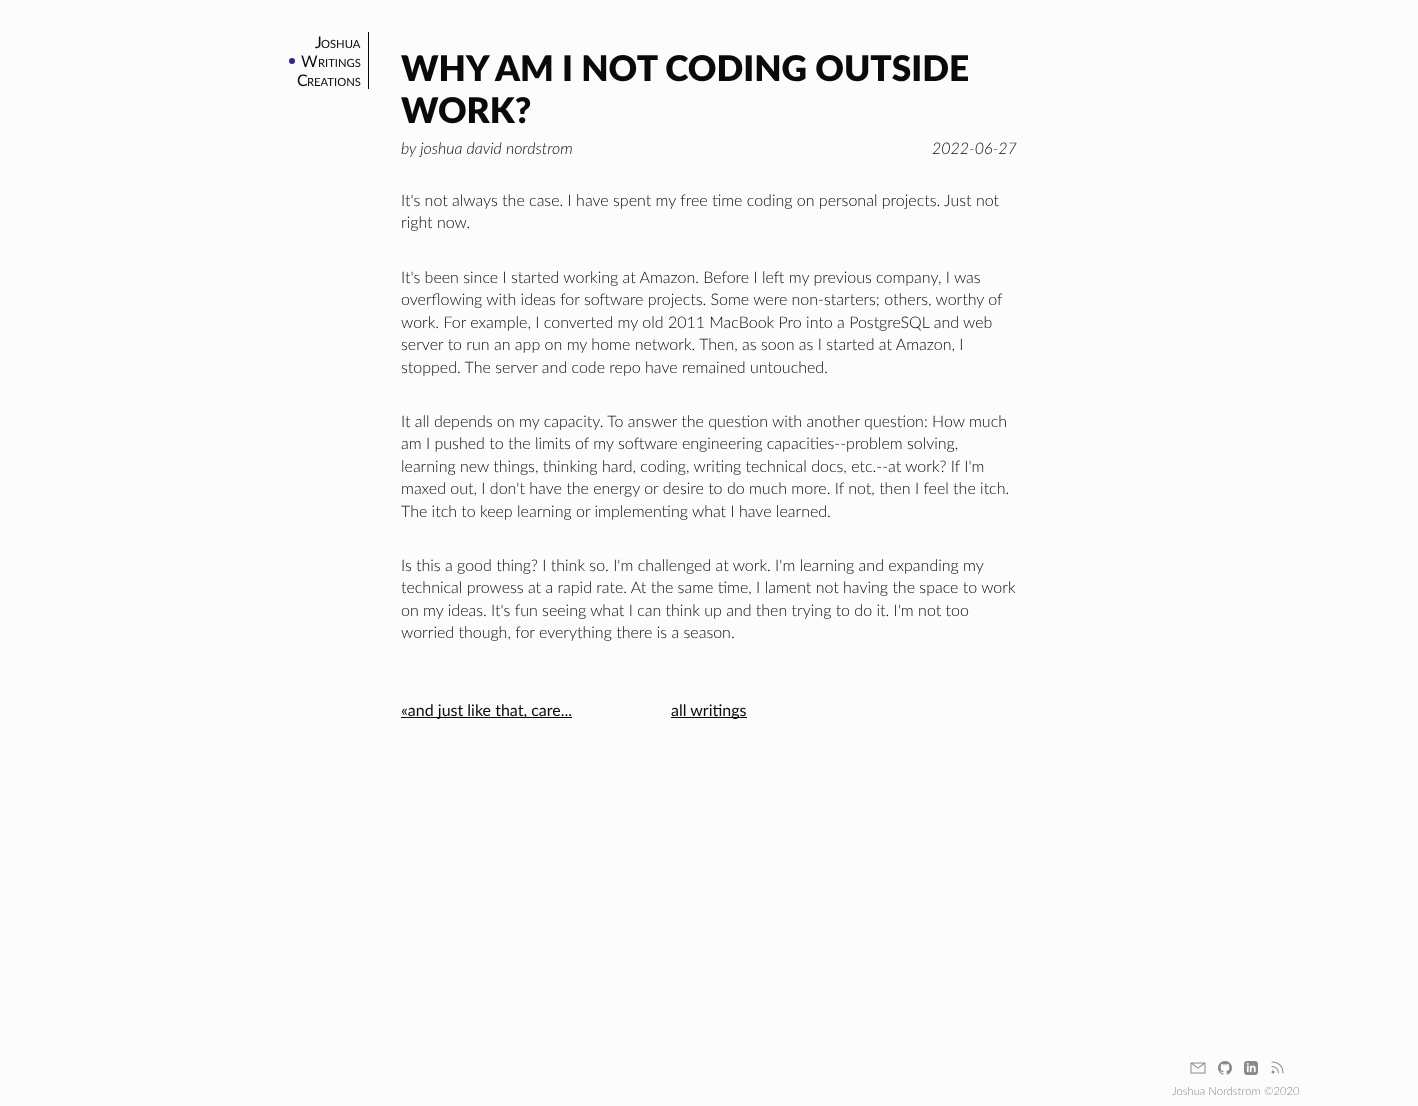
<?xml version="1.0" encoding="UTF-8"?>
<svg xmlns="http://www.w3.org/2000/svg" xmlns:xlink="http://www.w3.org/1999/xlink" width="1418" height="1106">
  <rect width="100%" height="100%" fill="#fcfcfc" />
  <rect x="368" y="32" width="1" height="57" fill="#0a0a0a" />
  <circle cx="292" cy="61" r="3" fill="#2a2a89" />
  <image x="1190" y="1062" width="16" height="12" xlink:href="image1.png" />
  <image x="1218" y="1061" width="14" height="14" xlink:href="image2.png" />
  <image x="1244" y="1061" width="14" height="14" xlink:href="image3.png" />
  <image x="1271" y="1061" width="13" height="13" xlink:href="image4.png" />
  <rect x="401" y="717" width="171" height="1" fill="#0a0a0a" />
  <rect x="671" y="717" width="76" height="1" fill="#0a0a0a" />
  <text x="315" y="48" style="font-family: Lato; font-size: 16px; fill: #0a0a0a">J</text>
  <text x="321" y="48" style="font-family: Lato; font-size: 11.25px; fill: #0a0a0a">OSHUA</text>
  <text x="301" y="67" style="font-family: Lato; font-size: 16px; fill: #0a0a0a">W</text>
  <text x="318" y="67" style="font-family: Lato; font-size: 11.25px; fill: #0a0a0a">RITINGS</text>
  <text x="297" y="86" style="font-family: Lato; font-size: 16px; fill: #0a0a0a">C</text>
  <text x="307" y="86" style="font-family: Lato; font-size: 11.25px; fill: #0a0a0a">REATIONS</text>
  <text x="1172" y="1095" style="font-family: Lato; font-size: 11.25px; font-weight: 300; fill: #8a8a8a">Joshua Nordstrom</text>
  <text x="1264" y="1095" style="font-family: Lato; font-size: 11.25px; font-weight: 300; fill: #8a8a8a">©2020</text>
  <text x="401" y="81" style="font-family: Lato; font-size: 35.25px; font-weight: 800; fill: #0a0a0a">WHY AM I NOT CODING OUTSIDE</text>
  <text x="401" y="123" style="font-family: Lato; font-size: 35.25px; font-weight: 800; fill: #0a0a0a">WORK?</text>
  <text x="401" y="154" style="font-family: Lato; font-size: 16px; font-weight: 300; font-style: italic; fill: #0a0a0a">by joshua david nordstrom</text>
  <text x="932" y="154" style="font-family: Lato; font-size: 16px; font-weight: 300; font-style: italic; fill: #0a0a0a">2022-06-27</text>
  <text x="401" y="206" style="font-family: Lato; font-size: 16px; font-weight: 300; fill: #0a0a0a">It's not always the case. I have spent my free time coding on personal projects. Just not</text>
  <text x="401" y="228" style="font-family: Lato; font-size: 16px; font-weight: 300; fill: #0a0a0a">right now.</text>
  <text x="401" y="283" style="font-family: Lato; font-size: 16px; font-weight: 300; fill: #0a0a0a">It's been since I started working at Amazon. Before I left my previous company, I was</text>
  <text x="401" y="305" style="font-family: Lato; font-size: 16px; font-weight: 300; fill: #0a0a0a">overflowing with ideas for software projects. Some were non-starters; others, worthy of</text>
  <text x="401" y="328" style="font-family: Lato; font-size: 16px; font-weight: 300; fill: #0a0a0a">work. For example, I converted my old 2011 MacBook Pro into a PostgreSQL and web</text>
  <text x="401" y="350" style="font-family: Lato; font-size: 16px; font-weight: 300; fill: #0a0a0a">server to run an app on my home network. Then, as soon as I started at Amazon, I</text>
  <text x="401" y="373" style="font-family: Lato; font-size: 16px; font-weight: 300; fill: #0a0a0a">stopped. The server and code repo have remained untouched.</text>
  <text x="401" y="427" style="font-family: Lato; font-size: 16px; font-weight: 300; fill: #0a0a0a">It all depends on my capacity. To answer the question with another question: How much</text>
  <text x="401" y="449" style="font-family: Lato; font-size: 16px; font-weight: 300; fill: #0a0a0a">am I pushed to the limits of my software engineering capacities--problem solving,</text>
  <text x="401" y="472" style="font-family: Lato; font-size: 16px; font-weight: 300; fill: #0a0a0a">learning new things, thinking hard, coding, writing technical docs, etc.--at work? If I'm</text>
  <text x="401" y="494" style="font-family: Lato; font-size: 16px; font-weight: 300; fill: #0a0a0a">maxed out, I don't have the energy or desire to do much more. If not, then I feel the itch.</text>
  <text x="401" y="517" style="font-family: Lato; font-size: 16px; font-weight: 300; fill: #0a0a0a">The itch to keep learning or implementing what I have learned.</text>
  <text x="401" y="571" style="font-family: Lato; font-size: 16px; font-weight: 300; fill: #0a0a0a">Is this a good thing? I think so. I'm challenged at work. I'm learning and expanding my</text>
  <text x="401" y="593" style="font-family: Lato; font-size: 16px; font-weight: 300; fill: #0a0a0a">technical prowess at a rapid rate. At the same time, I lament not having the space to work</text>
  <text x="401" y="616" style="font-family: Lato; font-size: 16px; font-weight: 300; fill: #0a0a0a">on my ideas. It's fun seeing what I can think up and then trying to do it. I'm not too</text>
  <text x="401" y="638" style="font-family: Lato; font-size: 16px; font-weight: 300; fill: #0a0a0a">worried though, for everything there is a season.</text>
  <text x="401" y="716" style="font-family: Lato; font-size: 16px; fill: #0a0a0a">«and just like that, care...</text>
  <text x="671" y="716" style="font-family: Lato; font-size: 16px; fill: #0a0a0a">all writings</text>
</svg>
